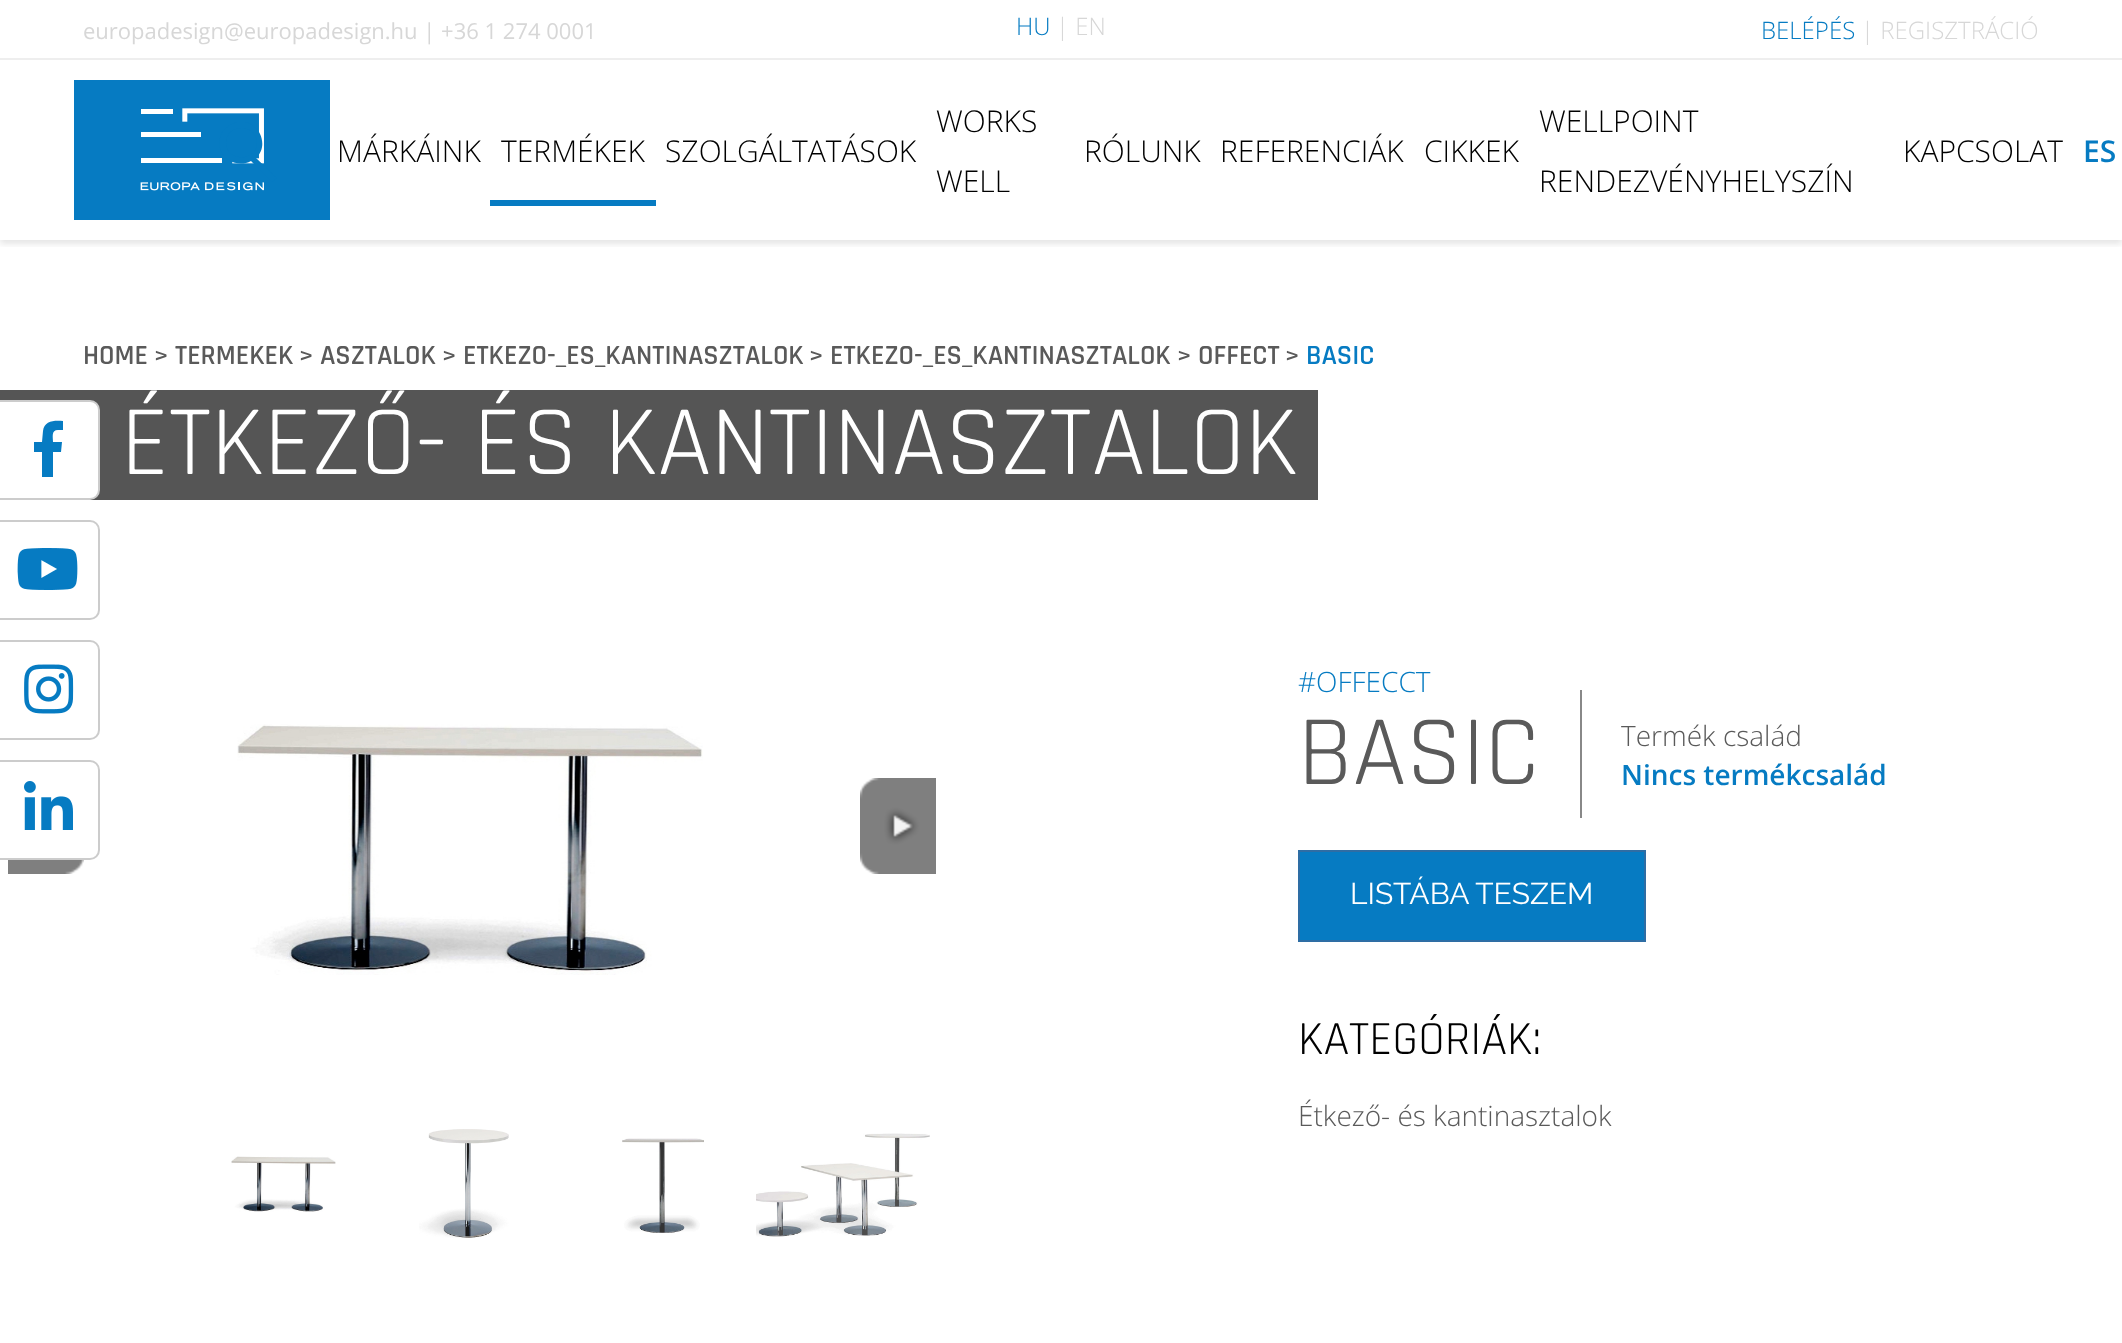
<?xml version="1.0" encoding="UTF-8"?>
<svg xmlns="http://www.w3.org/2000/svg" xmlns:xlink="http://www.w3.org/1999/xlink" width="2122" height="1343">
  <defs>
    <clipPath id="clip1"><rect x="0" y="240" width="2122" height="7" /></clipPath>
    <clipPath id="clip2"><rect x="218" y="122" width="60" height="60" /></clipPath>
  </defs>
  <rect width="100%" height="100%" fill="#ffffff" />
  <g clip-path="url(#clip1)">
    <rect y="64" width="2122" height="180" fill="#000000" fill-opacity="0.1" filter="blur(3px)" />
  </g>
  <rect y="58" width="2122" height="2" fill="#eeeeee" />
  <image x="74" y="80" width="256" height="140" xlink:href="image1.png" />
  <g clip-path="url(#clip2)">
    <path d="M 277 178 l -21 -20 c 15 -14 1 -40 -19 -36 c -6 2 -11 5 -14 9 c -4 6 -5 13 -2 20 c 5 11 19 16 30 10 l 21 21 z m -51 -35 c 0 -20 31 -20 31 0 c 0 19 -31 19 -31 0 z" fill="#067bc2" />
  </g>
  <rect x="490" y="200" width="166" height="6" fill="#067bc2" />
  <rect y="390" width="1318" height="110" fill="#555555" />
  <path d="M -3 401 h 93 c 5 0 9 4 9 9 v 80 c 0 5 -4 9 -9 9 h -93 z" fill="#ffffff" stroke="#cccccc" stroke-width="2" />
  <path d="M 58 430 c -7 0 -5 7 -5 12 h 9 l -1 10 h -8 v 25 h -11 v -25 h -8 v -10 h 8 l 1 -11 c 1 -10 11 -11 20 -10 v 9 z" fill="#067bc2" />
  <rect x="1580" y="690" width="2" height="128" fill="#888888" />
  <rect x="1299" y="851" width="346" height="90" fill="#067bc2" stroke="#2e6da4" stroke-width="2" />
  <path d="M -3 521 h 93 c 5 0 9 4 9 9 v 80 c 0 5 -4 9 -9 9 h -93 z" fill="none" stroke="#cccccc" stroke-width="2" />
  <image x="17" y="548" width="61" height="42" xlink:href="image2.png" />
  <path d="M -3 641 h 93 c 5 0 9 4 9 9 v 80 c 0 5 -4 9 -9 9 h -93 z" fill="none" stroke="#cccccc" stroke-width="2" />
  <image x="24" y="664" width="50" height="50" xlink:href="image3.png" />
  <path d="M -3 761 h 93 c 5 0 9 4 9 9 v 80 c 0 5 -4 9 -9 9 h -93 z" fill="none" stroke="#cccccc" stroke-width="2" />
  <image x="24" y="781" width="49" height="49" xlink:href="image4.png" />
  <image x="237" y="724" width="466" height="251" xlink:href="image5.png" />
  <image x="8" y="860" width="76" height="14" xlink:href="image6.png" />
  <image x="860" y="778" width="76" height="96" xlink:href="image7.png" />
  <image x="231" y="1156" width="105" height="56" xlink:href="image8.png" />
  <image x="419" y="1129" width="90" height="109" xlink:href="image9.png" />
  <image x="622" y="1138" width="82" height="95" xlink:href="image10.png" />
  <image x="756" y="1133" width="174" height="104" xlink:href="image11.png" />
  <text x="83" y="39" style="font-family: Open Sans; font-size: 22px; fill: #d7d7d7">europadesign@europadesign.hu | +36 1 274 0001</text>
  <text x="1016" y="35" style="font-family: Open Sans; font-size: 24px; font-weight: 300; fill: #067bc2">HU</text>
  <text x="1056" y="35" style="font-family: Open Sans; font-size: 24px; font-weight: 300; fill: #d7d7d7">| EN</text>
  <text x="1761" y="39" style="font-family: Open Sans; font-size: 24px; font-weight: 300; fill: #067bc2">BELÉPÉS</text>
  <text x="1861" y="39" style="font-family: Open Sans; font-size: 24px; font-weight: 300; fill: #d7d7d7">| REGISZTRÁCIÓ</text>
  <text x="337" y="162" style="font-family: Open Sans; font-size: 30px; font-weight: 300; fill: #000000">MÁRKÁINK</text>
  <text x="501" y="162" style="font-family: Open Sans; font-size: 30px; font-weight: 300; fill: #000000">TERMÉKEK</text>
  <text x="665" y="162" style="font-family: Open Sans; font-size: 30px; font-weight: 300; fill: #000000">SZOLGÁLTATÁSOK</text>
  <text x="936" y="132" style="font-family: Open Sans; font-size: 30px; font-weight: 300; fill: #000000">WORKS</text>
  <text x="936" y="192" style="font-family: Open Sans; font-size: 30px; font-weight: 300; fill: #000000">WELL</text>
  <text x="1084" y="162" style="font-family: Open Sans; font-size: 30px; font-weight: 300; fill: #000000">RÓLUNK</text>
  <text x="1220" y="162" style="font-family: Open Sans; font-size: 30px; font-weight: 300; fill: #000000">REFERENCIÁK</text>
  <text x="1424" y="162" style="font-family: Open Sans; font-size: 30px; font-weight: 300; fill: #000000">CIKKEK</text>
  <text x="1539" y="132" style="font-family: Open Sans; font-size: 30px; font-weight: 300; fill: #000000">WELLPOINT</text>
  <text x="1539" y="192" style="font-family: Open Sans; font-size: 30px; font-weight: 300; fill: #000000">RENDEZVÉNYHELYSZÍN</text>
  <text x="1903" y="162" style="font-family: Open Sans; font-size: 30px; font-weight: 300; fill: #000000">KAPCSOLAT</text>
  <text x="2083" y="162" style="font-family: Open Sans; font-size: 30px; font-weight: 600; fill: #067bc2">ES</text>
  <text x="83" y="364" style="font-family: Rajdhani; font-size: 28px; font-weight: 600; fill: #5a5a5a">HOME</text>
  <text x="154" y="364" style="font-family: Rajdhani; font-size: 26px; font-weight: 600; fill: #5a5a5a">&gt;</text>
  <text x="175" y="364" style="font-family: Rajdhani; font-size: 28px; font-weight: 600; fill: #5a5a5a">TERMEKEK</text>
  <text x="299" y="364" style="font-family: Rajdhani; font-size: 26px; font-weight: 600; fill: #5a5a5a">&gt;</text>
  <text x="320" y="364" style="font-family: Rajdhani; font-size: 28px; font-weight: 600; fill: #5a5a5a">ASZTALOK</text>
  <text x="442" y="364" style="font-family: Rajdhani; font-size: 26px; font-weight: 600; fill: #5a5a5a">&gt;</text>
  <text x="463" y="364" style="font-family: Rajdhani; font-size: 28px; font-weight: 600; fill: #5a5a5a">ETKEZO-_ES_KANTINASZTALOK</text>
  <text x="809" y="364" style="font-family: Rajdhani; font-size: 26px; font-weight: 600; fill: #5a5a5a">&gt;</text>
  <text x="830" y="364" style="font-family: Rajdhani; font-size: 28px; font-weight: 600; fill: #5a5a5a">ETKEZO-_ES_KANTINASZTALOK</text>
  <text x="1177" y="364" style="font-family: Rajdhani; font-size: 26px; font-weight: 600; fill: #5a5a5a">&gt;</text>
  <text x="1198" y="364" style="font-family: Rajdhani; font-size: 28px; font-weight: 600; fill: #5a5a5a">OFFECT</text>
  <text x="1285" y="364" style="font-family: Rajdhani; font-size: 26px; font-weight: 600; fill: #5a5a5a">&gt;</text>
  <text x="1306" y="364" style="font-family: Rajdhani; font-size: 28px; font-weight: 600; fill: #067bc2">BASIC</text>
  <text x="121" y="474" style="font-family: Rajdhani; font-size: 100px; fill: #ffffff">ÉTKEZŐ- ÉS KANTINASZTALOK</text>
  <text x="1298" y="692" style="font-family: Open Sans; font-size: 28px; font-weight: 300; fill: #067bc2">#OFFECCT</text>
  <text x="1298" y="784" style="font-family: Rajdhani; font-size: 100px; fill: #5a5a5a">BASIC</text>
  <text x="1621" y="746" style="font-family: Open Sans; font-size: 28px; font-weight: 300; fill: #5a5a5a">Termék család</text>
  <text x="1621" y="785" style="font-family: Open Sans; font-size: 28px; font-weight: 600; fill: #067bc2">Nincs termékcsalád</text>
  <text x="1350" y="904" style="font-family: Raleway; font-size: 30px; fill: #ffffff">LISTÁBA TESZEM</text>
  <text x="1298" y="1054" style="font-family: Rajdhani; font-size: 48px; fill: #000000">KATEGÓRIÁK:</text>
  <text x="1298" y="1126" style="font-family: Open Sans; font-size: 28px; font-weight: 300; fill: #5a5a5a">Étkező- és kantinasztalok</text>
</svg>
